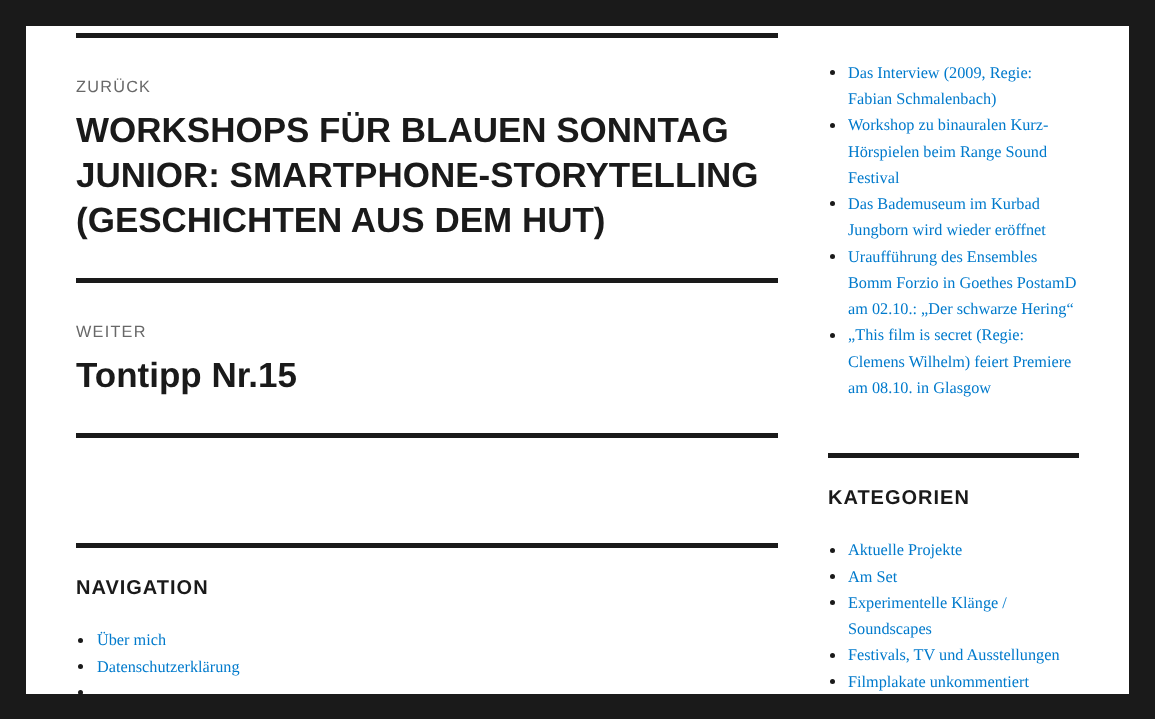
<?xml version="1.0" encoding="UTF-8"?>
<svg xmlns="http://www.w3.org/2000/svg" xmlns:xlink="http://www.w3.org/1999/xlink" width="1155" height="719">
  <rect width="100%" height="100%" fill="#1a1a1a" />
  <rect x="26" y="26" width="1103" height="668" fill="#ffffff" />
  <rect x="76" y="33" width="702" height="5" fill="#1a1a1a" />
  <rect x="76" y="433" width="702" height="5" fill="#1a1a1a" />
  <rect x="76" y="278" width="702" height="5" fill="#1a1a1a" />
  <rect x="76" y="543" width="702" height="5" fill="#1a1a1a" />
  <circle cx="80.5" cy="640.5" r="2.5" fill="#1a1a1a" />
  <circle cx="80.5" cy="666.5" r="2.5" fill="#1a1a1a" />
  <circle cx="80.5" cy="692.5" r="2.5" fill="#1a1a1a" />
  <circle cx="832.5" cy="72.5" r="2.5" fill="#1a1a1a" />
  <circle cx="832.5" cy="125.5" r="2.5" fill="#1a1a1a" />
  <circle cx="832.5" cy="203.5" r="2.5" fill="#1a1a1a" />
  <circle cx="832.5" cy="256.5" r="2.5" fill="#1a1a1a" />
  <circle cx="832.5" cy="335.5" r="2.5" fill="#1a1a1a" />
  <rect x="828" y="453" width="251" height="5" fill="#1a1a1a" />
  <circle cx="832.5" cy="550.5" r="2.5" fill="#1a1a1a" />
  <circle cx="832.5" cy="576.5" r="2.5" fill="#1a1a1a" />
  <circle cx="832.5" cy="602.5" r="2.5" fill="#1a1a1a" />
  <circle cx="832.5" cy="655.5" r="2.5" fill="#1a1a1a" />
  <circle cx="832.5" cy="681.5" r="2.5" fill="#1a1a1a" />
  <text x="76" y="92" style="font-family: Liberation Sans; font-size: 16.25px; letter-spacing: 1.25px; fill: #686868">ZURÜCK</text>
  <text x="76" y="142" style="font-family: Liberation Sans; font-size: 35px; font-weight: bold; fill: #1a1a1a">WORKSHOPS FÜR BLAUEN SONNTAG</text>
  <text x="76" y="187" style="font-family: Liberation Sans; font-size: 35px; font-weight: bold; fill: #1a1a1a">JUNIOR: SMARTPHONE-STORYTELLING</text>
  <text x="76" y="232" style="font-family: Liberation Sans; font-size: 35px; font-weight: bold; fill: #1a1a1a">(GESCHICHTEN AUS DEM HUT)</text>
  <text x="76" y="337" style="font-family: Liberation Sans; font-size: 16.25px; letter-spacing: 1.25px; fill: #686868">WEITER</text>
  <text x="76" y="387" style="font-family: Liberation Sans; font-size: 35px; font-weight: bold; fill: #1a1a1a">Tontipp Nr.15</text>
  <text x="76" y="594" style="font-family: Liberation Sans; font-size: 20px; font-weight: bold; letter-spacing: 1px; fill: #1a1a1a">NAVIGATION</text>
  <text x="97" y="645" style="font-family: Liberation Serif; font-size: 16.25px; fill: #007acc">Über mich</text>
  <text x="97" y="672" style="font-family: Liberation Serif; font-size: 16.25px; fill: #007acc">Datenschutzerklärung</text>
  <text x="848" y="78" style="font-family: Liberation Serif; font-size: 16.25px; fill: #007acc">Das Interview (2009, Regie:</text>
  <text x="848" y="104" style="font-family: Liberation Serif; font-size: 16.25px; fill: #007acc">Fabian Schmalenbach)</text>
  <text x="848" y="130" style="font-family: Liberation Serif; font-size: 16.25px; fill: #007acc">Workshop zu binauralen Kurz-</text>
  <text x="848" y="157" style="font-family: Liberation Serif; font-size: 16.25px; fill: #007acc">Hörspielen beim Range Sound</text>
  <text x="848" y="183" style="font-family: Liberation Serif; font-size: 16.25px; fill: #007acc">Festival</text>
  <text x="848" y="209" style="font-family: Liberation Serif; font-size: 16.25px; fill: #007acc">Das Bademuseum im Kurbad</text>
  <text x="848" y="235" style="font-family: Liberation Serif; font-size: 16.25px; fill: #007acc">Jungborn wird wieder eröffnet</text>
  <text x="848" y="262" style="font-family: Liberation Serif; font-size: 16.25px; fill: #007acc">Uraufführung des Ensembles</text>
  <text x="848" y="288" style="font-family: Liberation Serif; font-size: 16.25px; fill: #007acc">Bomm Forzio in Goethes PostamD</text>
  <text x="848" y="314" style="font-family: Liberation Serif; font-size: 16.25px; fill: #007acc">am 02.10.: „Der schwarze Hering“</text>
  <text x="848" y="340" style="font-family: Liberation Serif; font-size: 16.25px; fill: #007acc">„This film is secret (Regie:</text>
  <text x="848" y="367" style="font-family: Liberation Serif; font-size: 16.25px; fill: #007acc">Clemens Wilhelm) feiert Premiere</text>
  <text x="848" y="393" style="font-family: Liberation Serif; font-size: 16.25px; fill: #007acc">am 08.10. in Glasgow</text>
  <text x="828" y="504" style="font-family: Liberation Sans; font-size: 20px; font-weight: bold; letter-spacing: 1px; fill: #1a1a1a">KATEGORIEN</text>
  <text x="848" y="555" style="font-family: Liberation Serif; font-size: 16.25px; fill: #007acc">Aktuelle Projekte</text>
  <text x="848" y="582" style="font-family: Liberation Serif; font-size: 16.25px; fill: #007acc">Am Set</text>
  <text x="848" y="608" style="font-family: Liberation Serif; font-size: 16.25px; fill: #007acc">Experimentelle Klänge /</text>
  <text x="848" y="634" style="font-family: Liberation Serif; font-size: 16.25px; fill: #007acc">Soundscapes</text>
  <text x="848" y="660" style="font-family: Liberation Serif; font-size: 16.25px; fill: #007acc">Festivals, TV und Ausstellungen</text>
  <text x="848" y="687" style="font-family: Liberation Serif; font-size: 16.25px; fill: #007acc">Filmplakate unkommentiert</text>
</svg>
